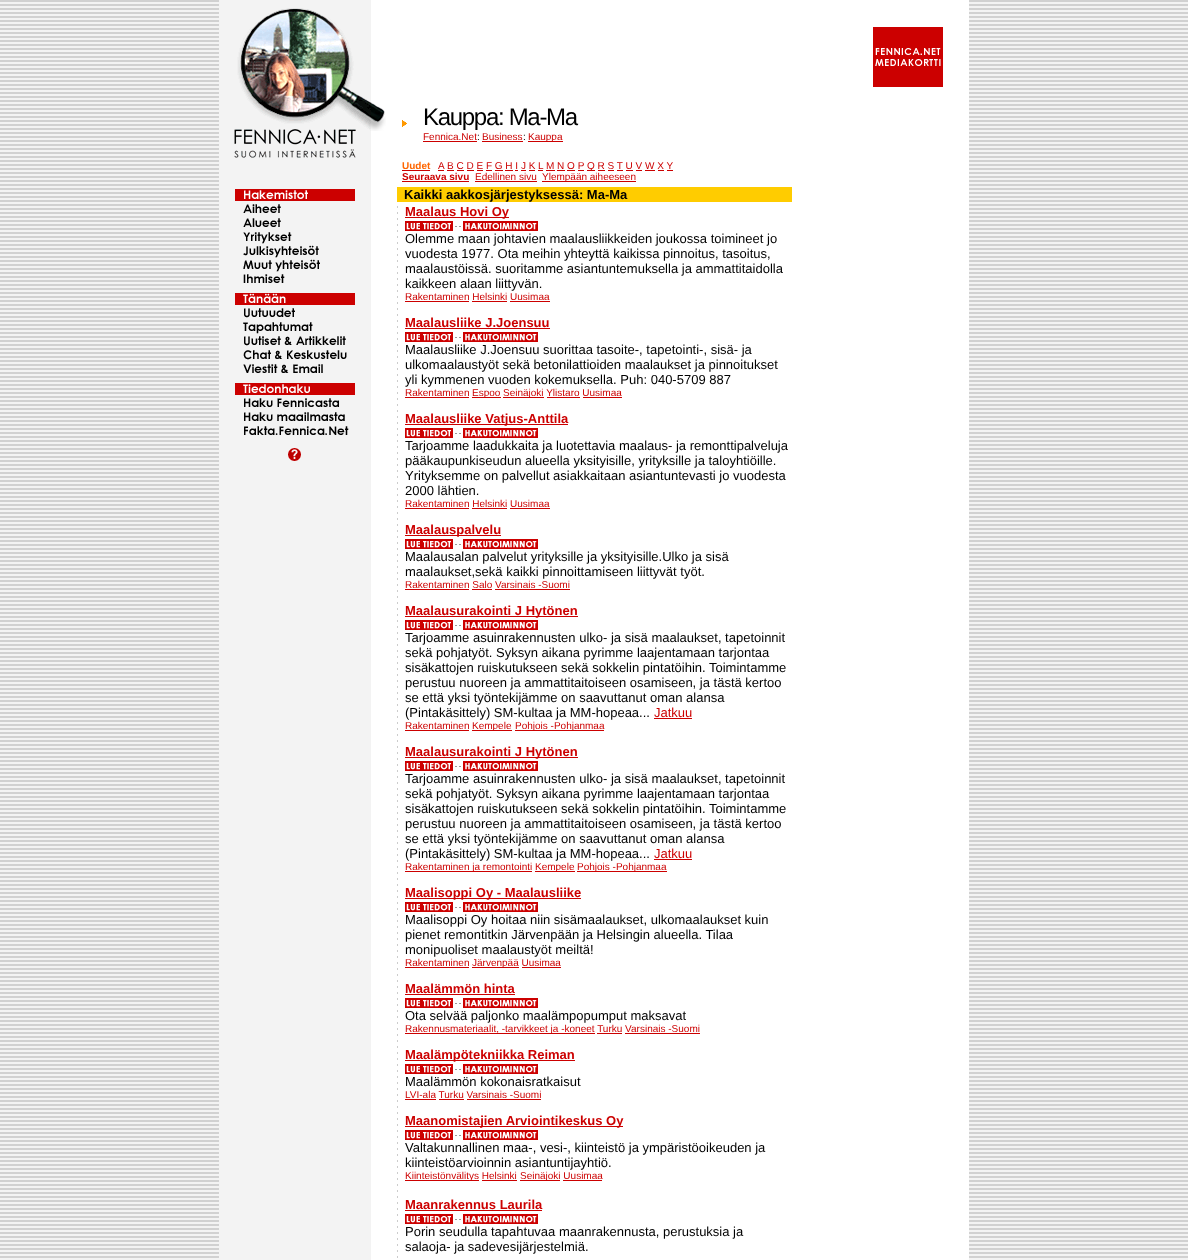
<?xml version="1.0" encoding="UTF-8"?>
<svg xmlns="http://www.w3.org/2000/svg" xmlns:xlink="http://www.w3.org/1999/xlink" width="1188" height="1260">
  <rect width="100%" height="100%" fill="#ffffff" />
  <image x="0" y="0" width="1188" height="1260" xlink:href="image1.png" />
  <rect x="371" width="598" height="1260" fill="#ffffff" />
  <rect x="219" width="152" height="186" fill="#f3f3f3" />
  <image x="234" y="8" width="137" height="150" xlink:href="image2.png" />
  <image x="371" y="102" width="15" height="29" xlink:href="image3.png" />
  <rect x="873" y="27" width="70" height="60" fill="#cc0000" />
  <image x="875" y="48" width="66" height="18" xlink:href="image4.png" />
  <image x="402" y="120" width="5" height="7" xlink:href="image5.png" />
  <rect x="423" y="141" width="54" height="1" fill="#cc0000" />
  <rect x="482" y="141" width="41" height="1" fill="#cc0000" />
  <rect x="528" y="141" width="35" height="1" fill="#cc0000" />
  <rect x="402" y="170" width="28" height="1" fill="#cc0000" />
  <rect x="438" y="170" width="6" height="1" fill="#cc0000" />
  <rect x="447" y="170" width="7" height="1" fill="#cc0000" />
  <rect x="457" y="170" width="7" height="1" fill="#cc0000" />
  <rect x="467" y="170" width="7" height="1" fill="#cc0000" />
  <rect x="477" y="170" width="6" height="1" fill="#cc0000" />
  <rect x="486" y="170" width="6" height="1" fill="#cc0000" />
  <rect x="495" y="170" width="8" height="1" fill="#cc0000" />
  <rect x="505" y="170" width="8" height="1" fill="#cc0000" />
  <rect x="515" y="170" width="3" height="1" fill="#cc0000" />
  <rect x="521" y="170" width="5" height="1" fill="#cc0000" />
  <rect x="529" y="170" width="6" height="1" fill="#cc0000" />
  <rect x="538" y="170" width="5" height="1" fill="#cc0000" />
  <rect x="546" y="170" width="9" height="1" fill="#cc0000" />
  <rect x="557" y="170" width="8" height="1" fill="#cc0000" />
  <rect x="567" y="170" width="8" height="1" fill="#cc0000" />
  <rect x="578" y="170" width="6" height="1" fill="#cc0000" />
  <rect x="587" y="170" width="8" height="1" fill="#cc0000" />
  <rect x="598" y="170" width="7" height="1" fill="#cc0000" />
  <rect x="608" y="170" width="6" height="1" fill="#cc0000" />
  <rect x="617" y="170" width="6" height="1" fill="#cc0000" />
  <rect x="626" y="170" width="7" height="1" fill="#cc0000" />
  <rect x="636" y="170" width="6" height="1" fill="#cc0000" />
  <rect x="645" y="170" width="10" height="1" fill="#cc0000" />
  <rect x="658" y="170" width="6" height="1" fill="#cc0000" />
  <rect x="667" y="170" width="6" height="1" fill="#cc0000" />
  <rect x="402" y="181" width="67" height="1" fill="#cc0000" />
  <rect x="475" y="181" width="62" height="1" fill="#cc0000" />
  <rect x="542" y="181" width="94" height="1" fill="#cc0000" />
  <rect x="219" y="188" width="152" height="1070" fill="#f3f3f3" />
  <image x="235" y="189" width="120" height="272" xlink:href="image6.png" />
  <rect x="397" y="187" width="395" height="15" fill="#ffcc00" />
  <image x="397" y="206" width="1" height="1052" xlink:href="image7.png" />
  <rect x="405" y="217" width="104" height="1" fill="#cc0000" />
  <image x="405" y="221" width="133" height="10" xlink:href="image8.png" />
  <rect x="405" y="301" width="64" height="1" fill="#cc0000" />
  <rect x="472" y="301" width="35" height="1" fill="#cc0000" />
  <rect x="510" y="301" width="40" height="1" fill="#cc0000" />
  <rect x="405" y="328" width="145" height="1" fill="#cc0000" />
  <image x="405" y="332" width="133" height="10" xlink:href="image8.png" />
  <rect x="405" y="397" width="64" height="1" fill="#cc0000" />
  <rect x="472" y="397" width="29" height="1" fill="#cc0000" />
  <rect x="503" y="397" width="41" height="1" fill="#cc0000" />
  <rect x="547" y="397" width="33" height="1" fill="#cc0000" />
  <rect x="583" y="397" width="39" height="1" fill="#cc0000" />
  <rect x="405" y="424" width="163" height="1" fill="#cc0000" />
  <image x="405" y="428" width="133" height="10" xlink:href="image8.png" />
  <rect x="405" y="508" width="64" height="1" fill="#cc0000" />
  <rect x="472" y="508" width="35" height="1" fill="#cc0000" />
  <rect x="510" y="508" width="40" height="1" fill="#cc0000" />
  <rect x="405" y="535" width="96" height="1" fill="#cc0000" />
  <image x="405" y="539" width="133" height="10" xlink:href="image8.png" />
  <rect x="405" y="589" width="64" height="1" fill="#cc0000" />
  <rect x="472" y="589" width="20" height="1" fill="#cc0000" />
  <rect x="495" y="589" width="75" height="1" fill="#cc0000" />
  <rect x="405" y="616" width="173" height="1" fill="#cc0000" />
  <image x="405" y="620" width="133" height="10" xlink:href="image8.png" />
  <rect x="654" y="718" width="38" height="1" fill="#cc0000" />
  <rect x="405" y="730" width="64" height="1" fill="#cc0000" />
  <rect x="472" y="730" width="40" height="1" fill="#cc0000" />
  <rect x="515" y="730" width="89" height="1" fill="#cc0000" />
  <rect x="405" y="757" width="173" height="1" fill="#cc0000" />
  <image x="405" y="761" width="133" height="10" xlink:href="image8.png" />
  <rect x="654" y="859" width="38" height="1" fill="#cc0000" />
  <rect x="405" y="871" width="127" height="1" fill="#cc0000" />
  <rect x="535" y="871" width="40" height="1" fill="#cc0000" />
  <rect x="577" y="871" width="90" height="1" fill="#cc0000" />
  <rect x="405" y="898" width="176" height="1" fill="#cc0000" />
  <image x="405" y="902" width="133" height="10" xlink:href="image8.png" />
  <rect x="405" y="967" width="64" height="1" fill="#cc0000" />
  <rect x="472" y="967" width="47" height="1" fill="#cc0000" />
  <rect x="522" y="967" width="39" height="1" fill="#cc0000" />
  <rect x="405" y="994" width="110" height="1" fill="#cc0000" />
  <image x="405" y="998" width="133" height="10" xlink:href="image8.png" />
  <rect x="405" y="1033" width="190" height="1" fill="#cc0000" />
  <rect x="597" y="1033" width="25" height="1" fill="#cc0000" />
  <rect x="625" y="1033" width="75" height="1" fill="#cc0000" />
  <rect x="405" y="1060" width="170" height="1" fill="#cc0000" />
  <image x="405" y="1064" width="133" height="10" xlink:href="image8.png" />
  <rect x="405" y="1099" width="31" height="1" fill="#cc0000" />
  <rect x="439" y="1099" width="25" height="1" fill="#cc0000" />
  <rect x="467" y="1099" width="74" height="1" fill="#cc0000" />
  <rect x="405" y="1126" width="218" height="1" fill="#cc0000" />
  <image x="405" y="1130" width="133" height="10" xlink:href="image8.png" />
  <rect x="405" y="1180" width="74" height="1" fill="#cc0000" />
  <rect x="482" y="1180" width="35" height="1" fill="#cc0000" />
  <rect x="520" y="1180" width="40" height="1" fill="#cc0000" />
  <rect x="563" y="1180" width="39" height="1" fill="#cc0000" />
  <rect x="405" y="1210" width="137" height="1" fill="#cc0000" />
  <image x="405" y="1214" width="133" height="10" xlink:href="image8.png" />
  <text x="423" y="125" style="font-family: Liberation Sans; font-size: 24px; letter-spacing: -1.3px; fill: #000000">Kauppa: Ma-Ma</text>
  <text x="423" y="140" style="font-family: Liberation Sans; font-size: 10px; fill: #cc0000">Fennica.Net</text>
  <text x="477" y="140" style="font-family: Liberation Sans; font-size: 10px; fill: #000000">:</text>
  <text x="482" y="140" style="font-family: Liberation Sans; font-size: 10px; fill: #cc0000">Business</text>
  <text x="523" y="140" style="font-family: Liberation Sans; font-size: 10px; fill: #000000">:</text>
  <text x="528" y="140" style="font-family: Liberation Sans; font-size: 10px; fill: #cc0000">Kauppa</text>
  <text x="402" y="169" style="font-family: Liberation Sans; font-size: 10px; font-weight: bold; fill: #ff6600">Uudet</text>
  <text x="438" y="169" style="font-family: Liberation Sans; font-size: 10px; fill: #cc0000">A</text>
  <text x="447" y="169" style="font-family: Liberation Sans; font-size: 10px; fill: #cc0000">B C D E F G H I J K L</text>
  <text x="546" y="169" style="font-family: Liberation Sans; font-size: 10px; fill: #cc0000">M N O P</text>
  <text x="587" y="169" style="font-family: Liberation Sans; font-size: 10px; fill: #cc0000">Q R S T U V W X Y</text>
  <text x="402" y="180" style="font-family: Liberation Sans; font-size: 10px; font-weight: bold; fill: #cc0000">Seuraava sivu</text>
  <text x="475" y="180" style="font-family: Liberation Sans; font-size: 10px; fill: #cc0000">Edellinen sivu</text>
  <text x="542" y="180" style="font-family: Liberation Sans; font-size: 10px; fill: #cc0000">Ylempään aiheeseen</text>
  <text x="404" y="199" style="font-family: Liberation Sans; font-size: 13px; font-weight: bold; fill: #000000">Kaikki aakkosjärjestyksessä: Ma-Ma</text>
  <text x="405" y="216" style="font-family: Liberation Sans; font-size: 13px; font-weight: bold; fill: #cc0000">Maalaus Hovi Oy</text>
  <text x="405" y="243" style="font-family: Liberation Sans; font-size: 13px; fill: #000000">Olemme maan johtavien maalausliikkeiden joukossa toimineet jo</text>
  <text x="405" y="258" style="font-family: Liberation Sans; font-size: 13px; fill: #000000">vuodesta 1977. Ota meihin yhteyttä kaikissa pinnoitus, tasoitus,</text>
  <text x="405" y="273" style="font-family: Liberation Sans; font-size: 13px; fill: #000000">maalaustöissä. suoritamme asiantuntemuksella ja ammattitaidolla</text>
  <text x="405" y="288" style="font-family: Liberation Sans; font-size: 13px; fill: #000000">kaikkeen alaan liittyvän.</text>
  <text x="405" y="300" style="font-family: Liberation Sans; font-size: 10px; fill: #cc0000">Rakentaminen Helsinki Uusimaa</text>
  <text x="405" y="327" style="font-family: Liberation Sans; font-size: 13px; font-weight: bold; fill: #cc0000">Maalausliike J.Joensuu</text>
  <text x="405" y="354" style="font-family: Liberation Sans; font-size: 13px; fill: #000000">Maalausliike J.Joensuu suorittaa tasoite-, tapetointi-, sisä- ja</text>
  <text x="405" y="369" style="font-family: Liberation Sans; font-size: 13px; fill: #000000">ulkomaalaustyöt sekä betonilattioiden maalaukset ja pinnoitukset</text>
  <text x="405" y="384" style="font-family: Liberation Sans; font-size: 13px; fill: #000000">yli kymmenen vuoden kokemuksella. Puh: 040-5709 887</text>
  <text x="405" y="396" style="font-family: Liberation Sans; font-size: 10px; fill: #cc0000">Rakentaminen</text>
  <text x="472" y="396" style="font-family: Liberation Sans; font-size: 10px; fill: #cc0000">Espoo</text>
  <text x="503" y="396" style="font-family: Liberation Sans; font-size: 10px; fill: #cc0000">Seinäjoki Ylistaro Uusimaa</text>
  <text x="405" y="423" style="font-family: Liberation Sans; font-size: 13px; font-weight: bold; fill: #cc0000">Maalausliike Vatjus-Anttila</text>
  <text x="405" y="450" style="font-family: Liberation Sans; font-size: 13px; fill: #000000">Tarjoamme laadukkaita ja luotettavia maalaus- ja remonttipalveluja</text>
  <text x="405" y="465" style="font-family: Liberation Sans; font-size: 13px; fill: #000000">pääkaupunkiseudun alueella yksityisille, yrityksille ja taloyhtiöille.</text>
  <text x="405" y="480" style="font-family: Liberation Sans; font-size: 13px; fill: #000000">Yrityksemme on palvellut asiakkaitaan asiantuntevasti jo vuodesta</text>
  <text x="405" y="495" style="font-family: Liberation Sans; font-size: 13px; fill: #000000">2000 lähtien.</text>
  <text x="405" y="507" style="font-family: Liberation Sans; font-size: 10px; fill: #cc0000">Rakentaminen Helsinki Uusimaa</text>
  <text x="405" y="534" style="font-family: Liberation Sans; font-size: 13px; font-weight: bold; fill: #cc0000">Maalauspalvelu</text>
  <text x="405" y="561" style="font-family: Liberation Sans; font-size: 13px; fill: #000000">Maalausalan palvelut yrityksille ja yksityisille.Ulko ja sisä</text>
  <text x="405" y="576" style="font-family: Liberation Sans; font-size: 13px; fill: #000000">maalaukset,sekä kaikki pinnoittamiseen liittyvät työt.</text>
  <text x="405" y="588" style="font-family: Liberation Sans; font-size: 10px; fill: #cc0000">Rakentaminen Salo Varsinais -Suomi</text>
  <text x="405" y="615" style="font-family: Liberation Sans; font-size: 13px; font-weight: bold; fill: #cc0000">Maalausurakointi J Hytönen</text>
  <text x="405" y="642" style="font-family: Liberation Sans; font-size: 13px; fill: #000000">Tarjoamme asuinrakennusten ulko- ja sisä maalaukset, tapetoinnit</text>
  <text x="405" y="657" style="font-family: Liberation Sans; font-size: 13px; fill: #000000">sekä pohjatyöt. Syksyn aikana pyrimme laajentamaan tarjontaa</text>
  <text x="405" y="672" style="font-family: Liberation Sans; font-size: 13px; fill: #000000">sisäkattojen ruiskutukseen sekä sokkelin pintatöihin. Toimintamme</text>
  <text x="405" y="687" style="font-family: Liberation Sans; font-size: 13px; fill: #000000">perustuu nuoreen ja ammattitaitoiseen osamiseen, ja tästä kertoo</text>
  <text x="405" y="702" style="font-family: Liberation Sans; font-size: 13px; fill: #000000">se että yksi työntekijämme on saavuttanut oman alansa</text>
  <text x="405" y="717" style="font-family: Liberation Sans; font-size: 13px; fill: #000000">(Pintakäsittely) SM-kultaa ja MM-hopeaa...</text>
  <text x="654" y="717" style="font-family: Liberation Sans; font-size: 13px; fill: #cc0000">Jatkuu</text>
  <text x="405" y="729" style="font-family: Liberation Sans; font-size: 10px; fill: #cc0000">Rakentaminen</text>
  <text x="472" y="729" style="font-family: Liberation Sans; font-size: 10px; fill: #cc0000">Kempele</text>
  <text x="515" y="729" style="font-family: Liberation Sans; font-size: 10px; fill: #cc0000">Pohjois -Pohjanmaa</text>
  <text x="405" y="756" style="font-family: Liberation Sans; font-size: 13px; font-weight: bold; fill: #cc0000">Maalausurakointi J Hytönen</text>
  <text x="405" y="783" style="font-family: Liberation Sans; font-size: 13px; fill: #000000">Tarjoamme asuinrakennusten ulko- ja sisä maalaukset, tapetoinnit</text>
  <text x="405" y="798" style="font-family: Liberation Sans; font-size: 13px; fill: #000000">sekä pohjatyöt. Syksyn aikana pyrimme laajentamaan tarjontaa</text>
  <text x="405" y="813" style="font-family: Liberation Sans; font-size: 13px; fill: #000000">sisäkattojen ruiskutukseen sekä sokkelin pintatöihin. Toimintamme</text>
  <text x="405" y="828" style="font-family: Liberation Sans; font-size: 13px; fill: #000000">perustuu nuoreen ja ammattitaitoiseen osamiseen, ja tästä kertoo</text>
  <text x="405" y="843" style="font-family: Liberation Sans; font-size: 13px; fill: #000000">se että yksi työntekijämme on saavuttanut oman alansa</text>
  <text x="405" y="858" style="font-family: Liberation Sans; font-size: 13px; fill: #000000">(Pintakäsittely) SM-kultaa ja MM-hopeaa...</text>
  <text x="654" y="858" style="font-family: Liberation Sans; font-size: 13px; fill: #cc0000">Jatkuu</text>
  <text x="405" y="870" style="font-family: Liberation Sans; font-size: 10px; fill: #cc0000">Rakentaminen ja remontointi</text>
  <text x="535" y="870" style="font-family: Liberation Sans; font-size: 10px; fill: #cc0000">Kempele</text>
  <text x="577" y="870" style="font-family: Liberation Sans; font-size: 10px; fill: #cc0000">Pohjois -Pohjanmaa</text>
  <text x="405" y="897" style="font-family: Liberation Sans; font-size: 13px; font-weight: bold; fill: #cc0000">Maalisoppi Oy - Maalausliike</text>
  <text x="405" y="924" style="font-family: Liberation Sans; font-size: 13px; fill: #000000">Maalisoppi Oy hoitaa niin sisämaalaukset, ulkomaalaukset kuin</text>
  <text x="405" y="939" style="font-family: Liberation Sans; font-size: 13px; fill: #000000">pienet remontitkin Järvenpään ja Helsingin alueella. Tilaa</text>
  <text x="405" y="954" style="font-family: Liberation Sans; font-size: 13px; fill: #000000">monipuoliset maalaustyöt meiltä!</text>
  <text x="405" y="966" style="font-family: Liberation Sans; font-size: 10px; fill: #cc0000">Rakentaminen</text>
  <text x="472" y="966" style="font-family: Liberation Sans; font-size: 10px; fill: #cc0000">Järvenpää Uusimaa</text>
  <text x="405" y="993" style="font-family: Liberation Sans; font-size: 13px; font-weight: bold; fill: #cc0000">Maalämmön hinta</text>
  <text x="405" y="1020" style="font-family: Liberation Sans; font-size: 13px; fill: #000000">Ota selvää paljonko maalämpopumput maksavat</text>
  <text x="405" y="1032" style="font-family: Liberation Sans; font-size: 10px; fill: #cc0000">Rakennusmateriaalit, -tarvikkeet ja -koneet Turku Varsinais -Suomi</text>
  <text x="405" y="1059" style="font-family: Liberation Sans; font-size: 13px; font-weight: bold; fill: #cc0000">Maalämpötekniikka Reiman</text>
  <text x="405" y="1086" style="font-family: Liberation Sans; font-size: 13px; fill: #000000">Maalämmön kokonaisratkaisut</text>
  <text x="405" y="1098" style="font-family: Liberation Sans; font-size: 10px; fill: #cc0000">LVI-ala Turku Varsinais -Suomi</text>
  <text x="405" y="1125" style="font-family: Liberation Sans; font-size: 13px; font-weight: bold; fill: #cc0000">Maanomistajien Arviointikeskus Oy</text>
  <text x="405" y="1152" style="font-family: Liberation Sans; font-size: 13px; fill: #000000">Valtakunnallinen maa-, vesi-, kiinteistö ja ympäristöoikeuden ja</text>
  <text x="405" y="1167" style="font-family: Liberation Sans; font-size: 13px; fill: #000000">kiinteistöarvioinnin asiantuntijayhtiö.</text>
  <text x="405" y="1179" style="font-family: Liberation Sans; font-size: 10px; fill: #cc0000">Kiinteistönvälitys Helsinki</text>
  <text x="520" y="1179" style="font-family: Liberation Sans; font-size: 10px; fill: #cc0000">Seinäjoki Uusimaa</text>
  <text x="405" y="1209" style="font-family: Liberation Sans; font-size: 13px; font-weight: bold; fill: #cc0000">Maanrakennus Laurila</text>
  <text x="405" y="1236" style="font-family: Liberation Sans; font-size: 13px; fill: #000000">Porin seudulla tapahtuvaa maanrakennusta, perustuksia ja</text>
  <text x="405" y="1251" style="font-family: Liberation Sans; font-size: 13px; fill: #000000">salaoja- ja sadevesijärjestelmiä.</text>
</svg>
